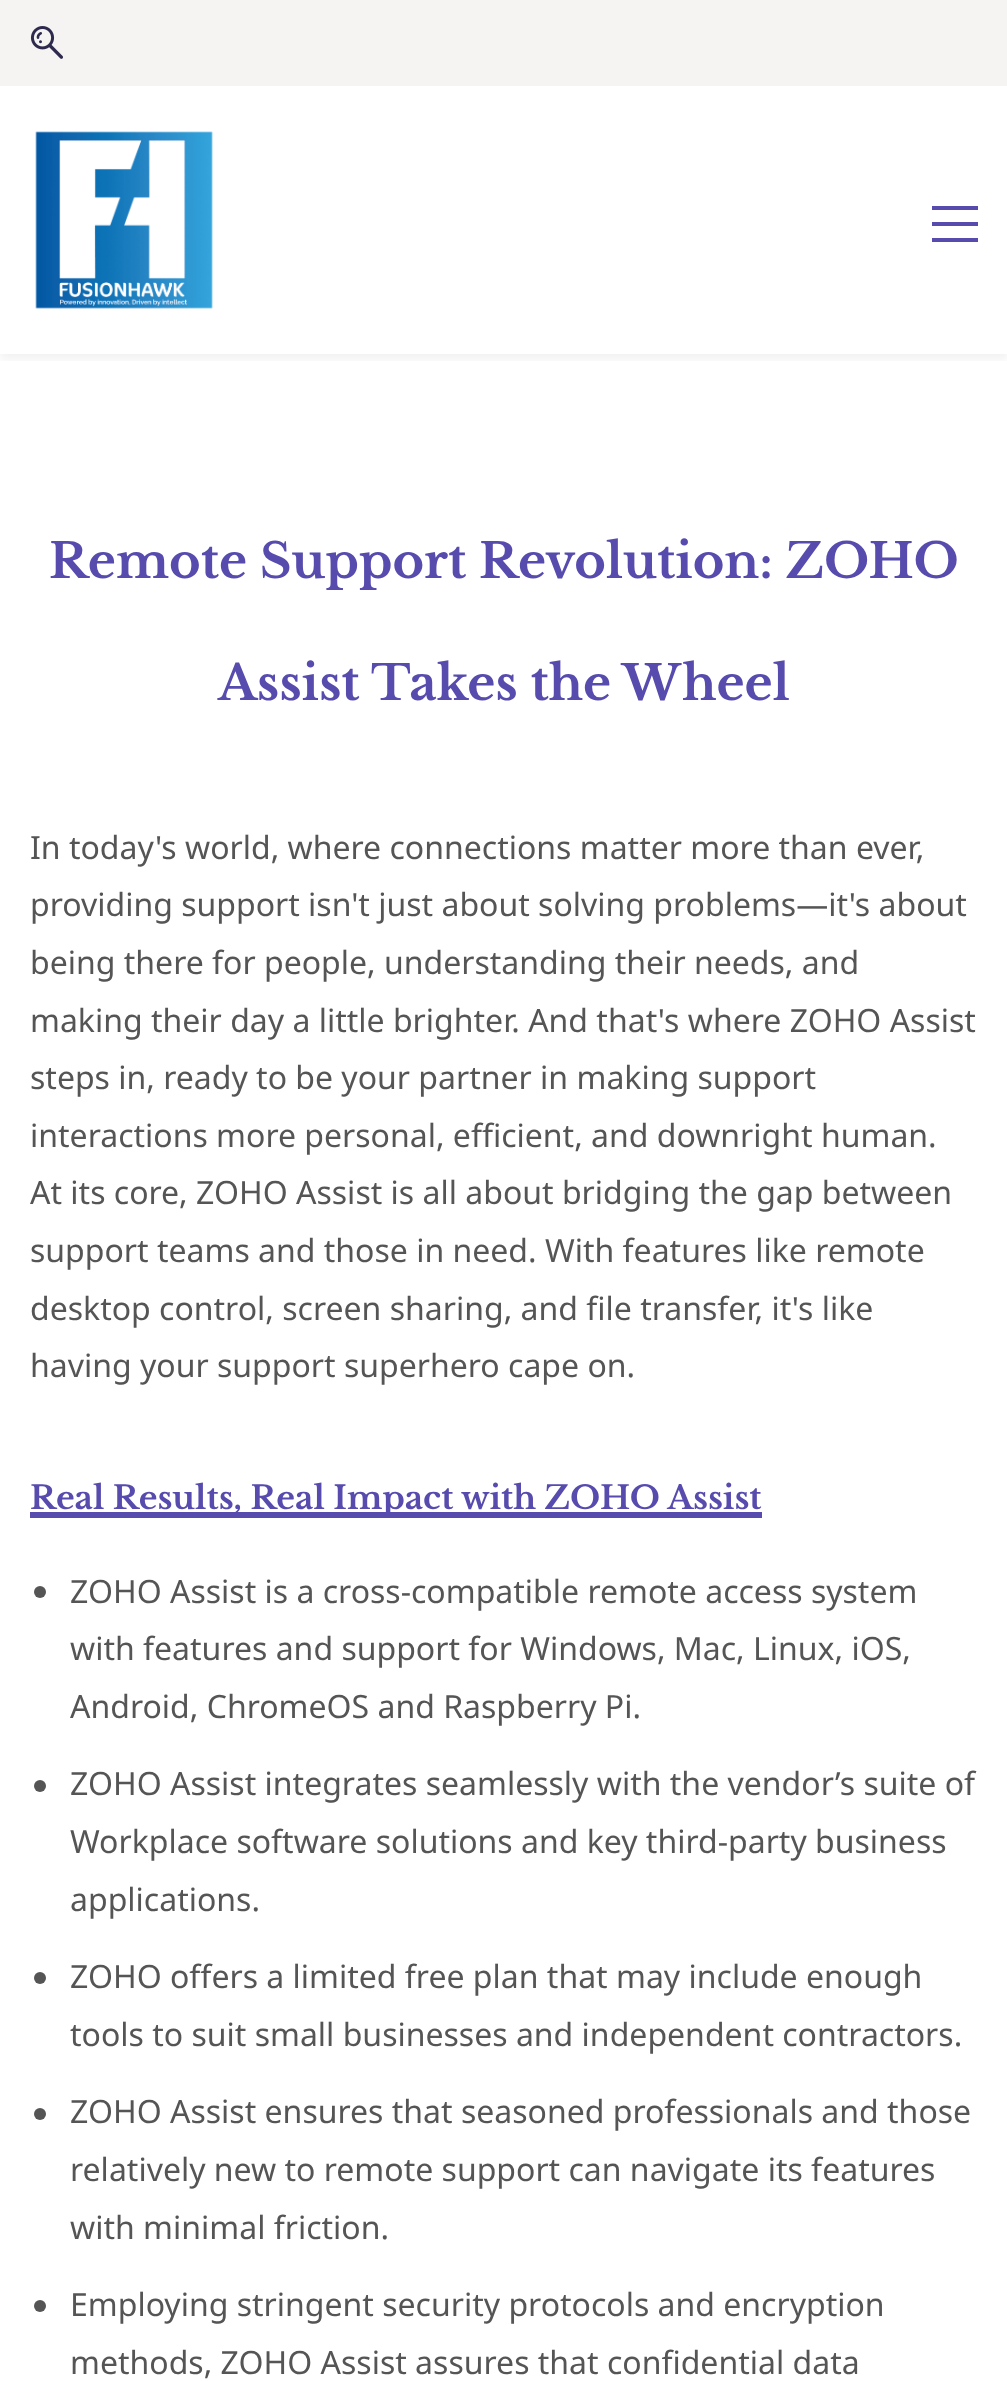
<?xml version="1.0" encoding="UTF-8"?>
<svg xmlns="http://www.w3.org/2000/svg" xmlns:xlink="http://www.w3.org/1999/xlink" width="1007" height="2381">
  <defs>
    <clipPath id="clip1"><rect x="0" y="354" width="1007" height="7" /></clipPath>
  </defs>
  <rect width="100%" height="100%" fill="#ffffff" />
  <g clip-path="url(#clip1)">
    <rect y="6" width="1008" height="354" fill="#000000" fill-opacity="0.05" filter="blur(5px)" />
  </g>
  <rect width="1007" height="86" fill="#f5f4f2" />
  <image x="30" y="26" width="33" height="33" xlink:href="image1.png" />
  <image x="35" y="131" width="178" height="178" xlink:href="image2.png" />
  <rect x="932" y="206" width="46" height="4" fill="#574cae" />
  <rect x="932" y="222" width="46" height="4" fill="#574cae" />
  <rect x="932" y="238" width="46" height="4" fill="#574cae" />
  <rect x="30" y="1512" width="732" height="6" fill="#574cae" />
  <circle cx="40" cy="1592" r="6" fill="#555555" />
  <circle cx="40" cy="1786" r="6" fill="#555555" />
  <circle cx="40" cy="1978" r="6" fill="#555555" />
  <circle cx="40" cy="2114" r="6" fill="#555555" />
  <circle cx="40" cy="2306" r="6" fill="#555555" />
  <text x="49" y="578" style="font-family: Libre Baskerville; font-size: 48px; font-weight: bold; fill: #574cae">Remote Support Revolution: ZOHO</text>
  <text x="218" y="700" style="font-family: Libre Baskerville; font-size: 48px; font-weight: bold; fill: #574cae">Assist Takes the Wheel</text>
  <text x="30" y="859" style="font-family: Noto Sans; font-size: 32px; fill: #555555">In today's world, where connections matter more than ever,</text>
  <text x="30" y="916" style="font-family: Noto Sans; font-size: 32px; fill: #555555">providing support isn't just about solving problems—it's about</text>
  <text x="30" y="974" style="font-family: Noto Sans; font-size: 32px; fill: #555555">being there for people, understanding their needs, and</text>
  <text x="30" y="1032" style="font-family: Noto Sans; font-size: 32px; fill: #555555">making their day a little brighter. And that's where ZOHO Assist</text>
  <text x="30" y="1089" style="font-family: Noto Sans; font-size: 32px; fill: #555555">steps in, ready to be your partner in making support</text>
  <text x="30" y="1147" style="font-family: Noto Sans; font-size: 32px; fill: #555555">interactions more personal, efficient, and downright human.</text>
  <text x="30" y="1204" style="font-family: Noto Sans; font-size: 32px; fill: #555555">At its core, ZOHO Assist is all about bridging the gap between</text>
  <text x="30" y="1262" style="font-family: Noto Sans; font-size: 32px; fill: #555555">support teams and those in need. With features like remote</text>
  <text x="30" y="1320" style="font-family: Noto Sans; font-size: 32px; fill: #555555">desktop control, screen sharing, and file transfer, it's like</text>
  <text x="30" y="1377" style="font-family: Noto Sans; font-size: 32px; fill: #555555">having your support superhero cape on.</text>
  <text x="30" y="1509" style="font-family: Libre Baskerville; font-size: 32px; font-weight: bold; fill: #574cae">Real Results, Real Impact with ZOHO Assist</text>
  <text x="70" y="1603" style="font-family: Noto Sans; font-size: 32px; fill: #555555">ZOHO Assist is a cross-compatible remote access system</text>
  <text x="70" y="1660" style="font-family: Noto Sans; font-size: 32px; fill: #555555">with features and support for Windows, Mac, Linux, iOS,</text>
  <text x="70" y="1718" style="font-family: Noto Sans; font-size: 32px; fill: #555555">Android, ChromeOS and Raspberry Pi.</text>
  <text x="70" y="1795" style="font-family: Noto Sans; font-size: 32px; fill: #555555">ZOHO Assist integrates seamlessly with the vendor’s suite of</text>
  <text x="70" y="1853" style="font-family: Noto Sans; font-size: 32px; fill: #555555">Workplace software solutions and key third-party business</text>
  <text x="70" y="1911" style="font-family: Noto Sans; font-size: 32px; fill: #555555">applications.</text>
  <text x="70" y="1988" style="font-family: Noto Sans; font-size: 32px; fill: #555555">ZOHO offers a limited free plan that may include enough</text>
  <text x="70" y="2046" style="font-family: Noto Sans; font-size: 32px; fill: #555555">tools to suit small businesses and independent contractors.</text>
  <text x="70" y="2123" style="font-family: Noto Sans; font-size: 32px; fill: #555555">ZOHO Assist ensures that seasoned professionals and those</text>
  <text x="70" y="2181" style="font-family: Noto Sans; font-size: 32px; fill: #555555">relatively new to remote support can navigate its features</text>
  <text x="70" y="2239" style="font-family: Noto Sans; font-size: 32px; fill: #555555">with minimal friction.</text>
  <text x="70" y="2316" style="font-family: Noto Sans; font-size: 32px; fill: #555555">Employing stringent security protocols and encryption</text>
  <text x="70" y="2374" style="font-family: Noto Sans; font-size: 32px; fill: #555555">methods, ZOHO Assist assures that confidential data</text>
</svg>
